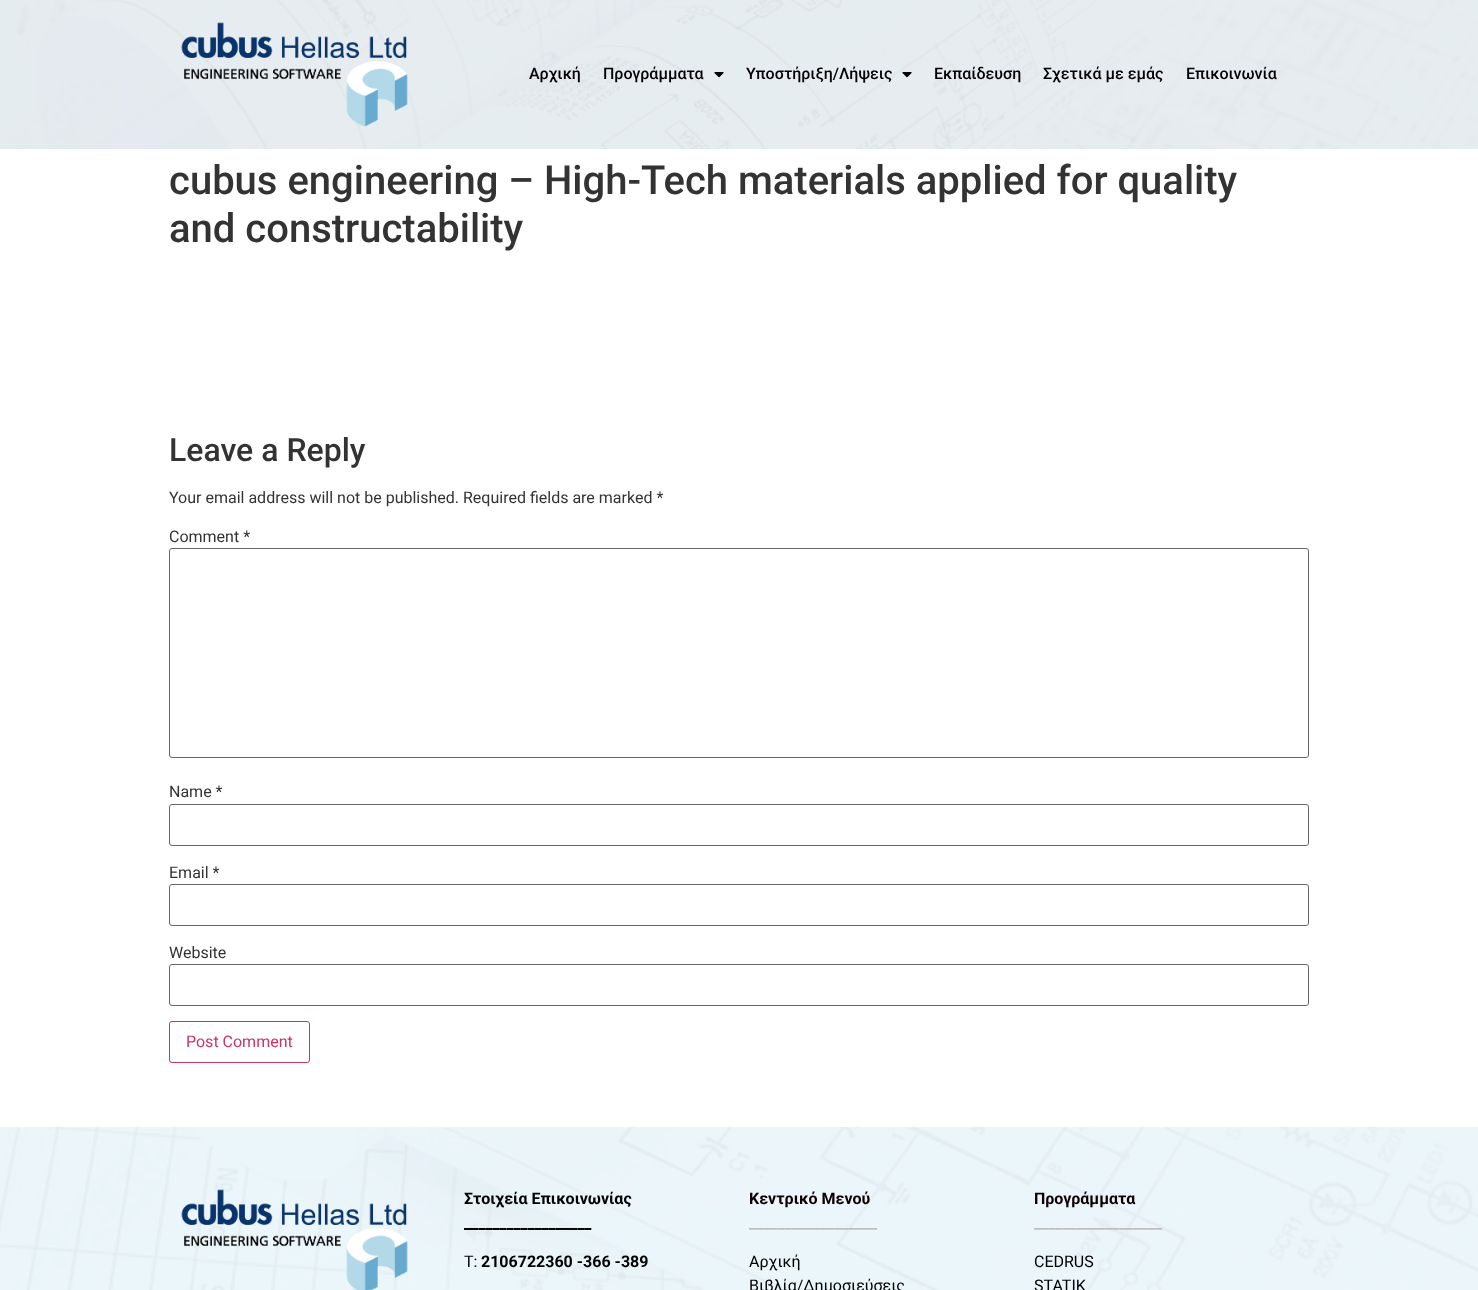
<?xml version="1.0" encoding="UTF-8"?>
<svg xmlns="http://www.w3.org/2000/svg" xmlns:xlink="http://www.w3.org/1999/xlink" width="1478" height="1290">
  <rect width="100%" height="100%" fill="#ffffff" />
  <image x="0" y="0" width="1478" height="149" xlink:href="image1.png" />
  <image x="181" y="22" width="227" height="105" xlink:href="image2.png" />
  <image x="714" y="72" width="10" height="6" xlink:href="image3.png" />
  <image x="902" y="72" width="10" height="6" xlink:href="image4.png" />
  <rect x="169.5" y="548.5" width="1139" height="209" rx="2.5" fill="none" stroke="#666666" />
  <rect x="169.5" y="804.5" width="1139" height="41" rx="2.5" fill="none" stroke="#666666" />
  <rect x="169.5" y="884.5" width="1139" height="41" rx="2.5" fill="none" stroke="#666666" />
  <rect x="169.5" y="964.5" width="1139" height="41" rx="2.5" fill="none" stroke="#666666" />
  <rect x="169.5" y="1021.5" width="140" height="41" rx="2.5" fill="none" stroke="#cc3366" />
  <image x="0" y="1127" width="1478" height="163" xlink:href="image5.png" />
  <image x="181" y="1189" width="227" height="101" xlink:href="image6.png" />
  <text x="529" y="79" style="font-family: Roboto; font-size: 16px; font-weight: 500; fill: #000000">Αρχική</text>
  <text x="603" y="79" style="font-family: Roboto; font-size: 16px; font-weight: 500; fill: #000000">Προγράμματα</text>
  <text x="746" y="79" style="font-family: Roboto; font-size: 16px; font-weight: 500; fill: #000000">Υποστήριξη/Λήψεις</text>
  <text x="934" y="79" style="font-family: Roboto; font-size: 16px; font-weight: 500; fill: #000000">Εκπαίδευση</text>
  <text x="1043" y="79" style="font-family: Roboto; font-size: 16px; font-weight: 500; fill: #000000">Σχετικά με εμάς</text>
  <text x="1186" y="79" style="font-family: Roboto; font-size: 16px; font-weight: 500; fill: #000000">Επικοινωνία</text>
  <text x="169" y="194" style="font-family: Roboto; font-size: 40px; font-weight: 500; fill: #333333">cubus engineering – High-Tech materials applied for quality</text>
  <text x="169" y="242" style="font-family: Roboto; font-size: 40px; font-weight: 500; fill: #333333">and constructability</text>
  <text x="169" y="461" style="font-family: Roboto; font-size: 32px; font-weight: 500; fill: #333333">Leave a Reply</text>
  <text x="169" y="503" style="font-family: Roboto; font-size: 16px; fill: #333333">Your email address will not be published. Required fields are marked *</text>
  <text x="169" y="542" style="font-family: Roboto; font-size: 16px; fill: #333333">Comment *</text>
  <text x="169" y="797" style="font-family: Roboto; font-size: 16px; fill: #333333">Name *</text>
  <text x="169" y="878" style="font-family: Roboto; font-size: 16px; fill: #333333">Email *</text>
  <text x="169" y="958" style="font-family: Roboto; font-size: 16px; fill: #333333">Website</text>
  <text x="186" y="1047" style="font-family: Roboto; font-size: 16px; fill: #cc3366">Post Comment</text>
  <text x="464" y="1204" style="font-family: Roboto; font-size: 16px; font-weight: bold; fill: #000000">Στοιχεία Επικοινωνίας</text>
  <text x="464" y="1228" style="font-family: Roboto; font-size: 16px; font-weight: 900; fill: #000000">__________________</text>
  <text x="464" y="1267" style="font-family: Roboto; font-size: 16px; fill: #000000">T:</text>
  <text x="481" y="1267" style="font-family: Roboto; font-size: 16px; font-weight: bold; fill: #000000">2106722360 -366 -389</text>
  <text x="749" y="1204" style="font-family: Roboto; font-size: 16px; font-weight: bold; fill: #0d0000">Κεντρικό Μενού</text>
  <text x="749" y="1228" style="font-family: Roboto; font-size: 16px; font-weight: bold; fill: #bfbdbd">__________________</text>
  <text x="749" y="1267" style="font-family: Roboto; font-size: 16px; fill: #000000">Αρχική</text>
  <text x="749" y="1291" style="font-family: Roboto; font-size: 16px; fill: #000000">Βιβλία/Δημοσιεύσεις</text>
  <text x="1034" y="1204" style="font-family: Roboto; font-size: 16px; font-weight: bold; fill: #0d0000">Προγράμματα</text>
  <text x="1034" y="1228" style="font-family: Roboto; font-size: 16px; font-weight: bold; fill: #bfbdbd">__________________</text>
  <text x="1034" y="1267" style="font-family: Roboto; font-size: 16px; fill: #000000">CEDRUS</text>
  <text x="1034" y="1291" style="font-family: Roboto; font-size: 16px; fill: #000000">STATIK</text>
</svg>
